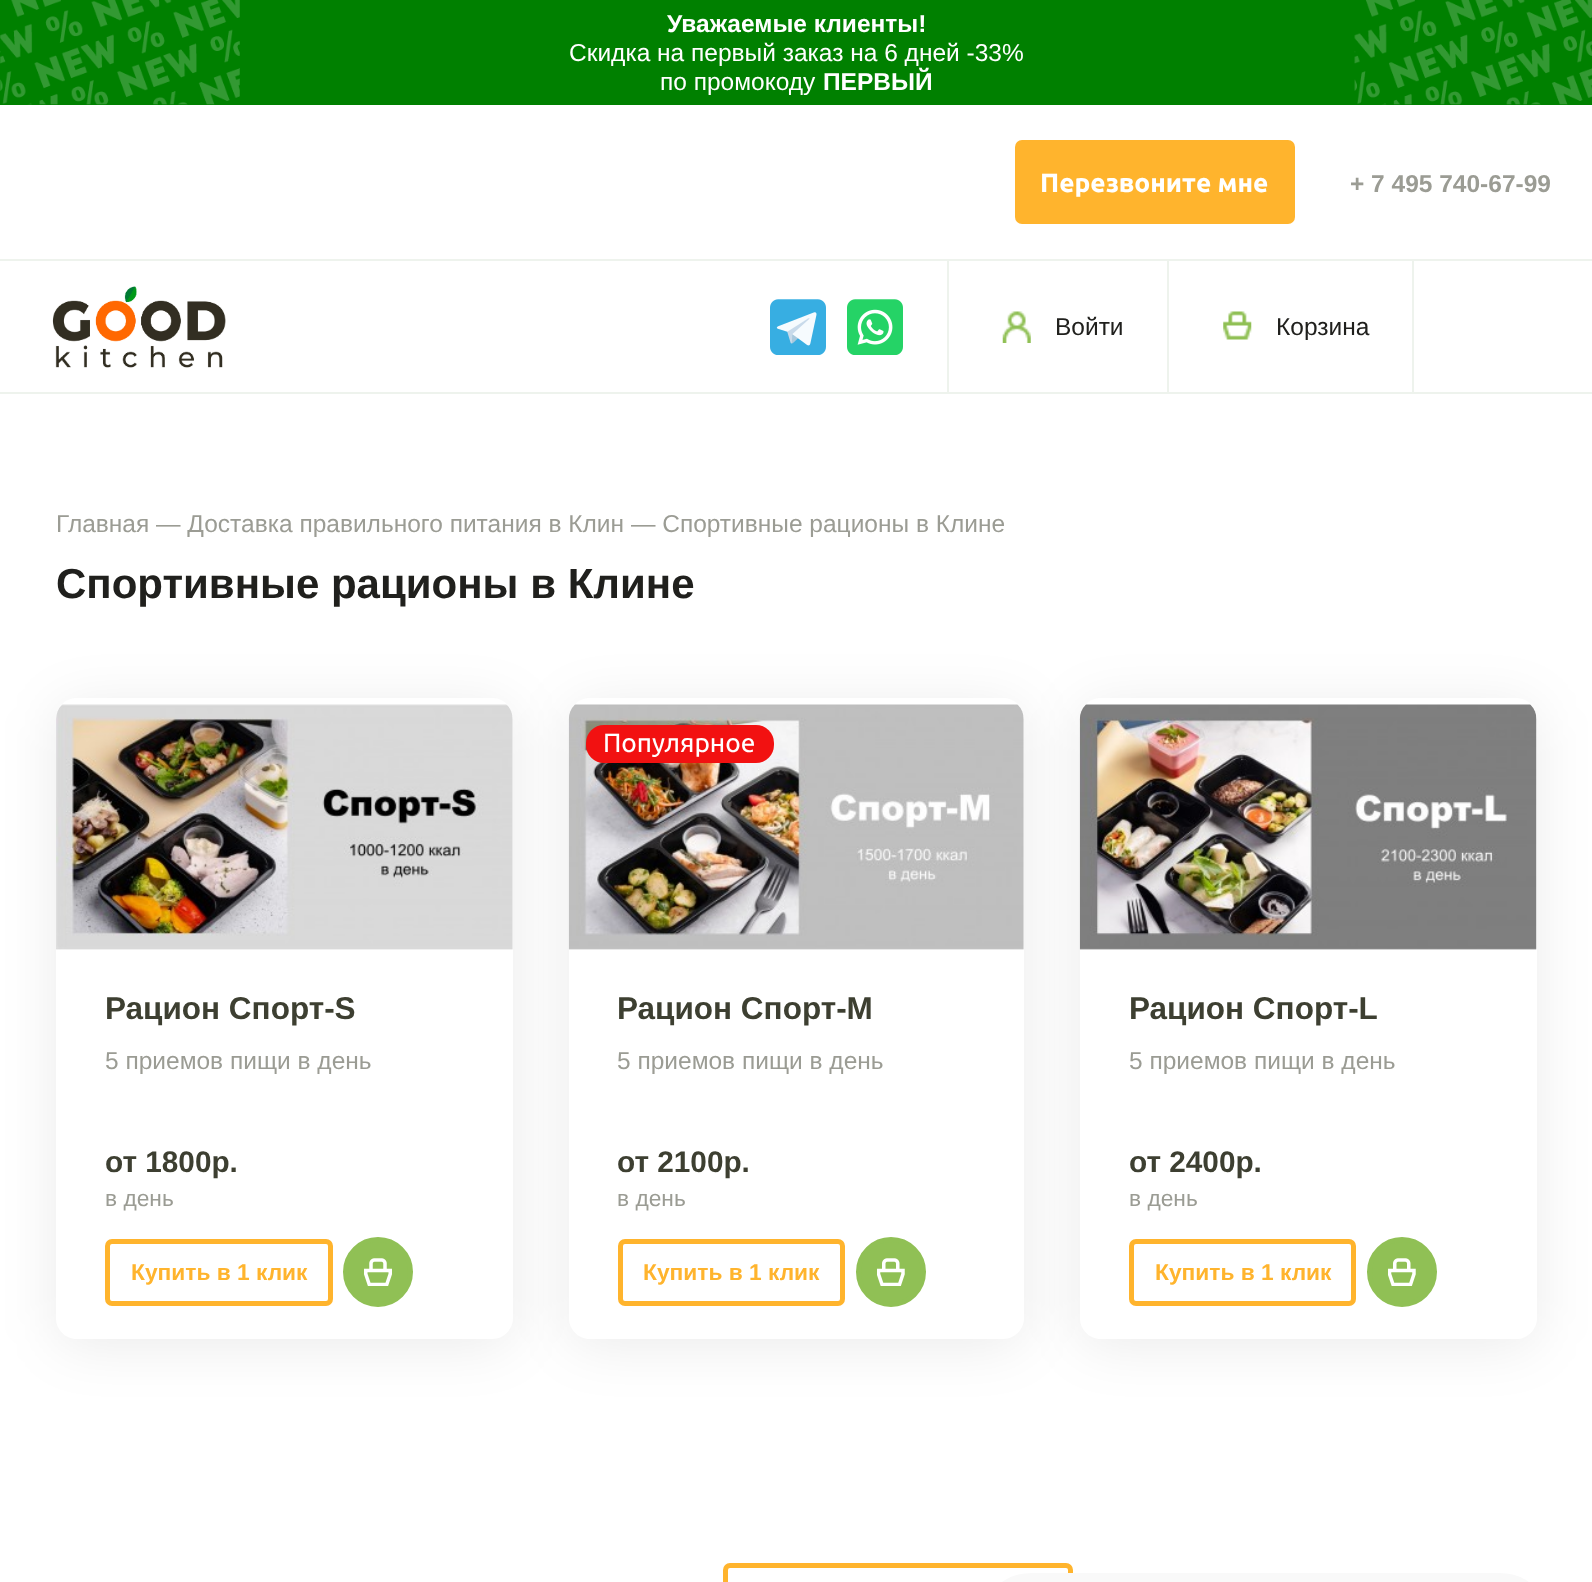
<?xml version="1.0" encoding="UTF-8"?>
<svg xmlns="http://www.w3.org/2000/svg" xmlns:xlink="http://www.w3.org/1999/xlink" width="1592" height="1582">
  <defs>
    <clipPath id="clip1"><path d="M 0 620 h 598 v 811 h -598 z m 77 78 h 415 c 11.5 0 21 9.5 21 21 v 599 c 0 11.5 -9.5 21 -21 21 h -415 c -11.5 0 -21 -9.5 -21 -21 v -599 c 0 -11.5 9.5 -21 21 -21 z" clip-rule="evenodd" /></clipPath>
    <clipPath id="clip2"><path d="M 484 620 h 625 v 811 h -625 z m 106 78 h 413 c 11.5 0 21 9.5 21 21 v 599 c 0 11.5 -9.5 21 -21 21 h -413 c -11.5 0 -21 -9.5 -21 -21 v -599 c 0 -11.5 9.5 -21 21 -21 z" clip-rule="evenodd" /></clipPath>
    <clipPath id="clip3"><path d="M 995 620 h 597 v 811 h -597 z m 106 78 h 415 c 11.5 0 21 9.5 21 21 v 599 c 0 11.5 -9.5 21 -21 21 h -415 c -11.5 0 -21 -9.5 -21 -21 v -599 c 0 -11.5 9.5 -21 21 -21 z" clip-rule="evenodd" /></clipPath>
  </defs>
  <rect width="100%" height="100%" fill="#ffffff" />
  <rect width="1592" height="105" fill="#008000" />
  <image x="0" y="0" width="240" height="105" xlink:href="image1.png" />
  <image x="1354" y="0" width="238" height="105" xlink:href="image2.png" />
  <rect y="259" width="1592" height="2" fill="#eef3ed" />
  <rect x="1015" y="140" width="280" height="84" rx="7" fill="#ffb42d" />
  <rect y="392" width="1592" height="2" fill="#eef3ed" />
  <image x="52" y="286" width="174" height="82" xlink:href="image3.png" />
  <image x="770" y="299" width="56" height="56" xlink:href="image4.png" />
  <image x="847" y="299" width="56" height="56" xlink:href="image5.png" />
  <rect x="947" y="261" width="2" height="131" fill="#eef3ed" />
  <image x="1002" y="311" width="29" height="32" xlink:href="image6.png" />
  <rect x="1167" y="261" width="2" height="131" fill="#eef3ed" />
  <image x="1223" y="311" width="29" height="29" xlink:href="image7.png" />
  <rect x="1412" y="261" width="2" height="131" fill="#eef3ed" />
  <g clip-path="url(#clip1)">
    <rect x="56" y="705" width="457" height="641" rx="21" fill="#000000" fill-opacity="0.08" filter="blur(28px)" />
  </g>
  <image x="56" y="704" width="457" height="246" xlink:href="image8.png" />
  <rect x="107.5" y="1241.5" width="223" height="62" rx="4.5" fill="none" stroke="#ffb42d" stroke-width="5" />
  <circle cx="378" cy="1272" r="32.5" fill="#90c055" stroke="#90c055" stroke-width="5" />
  <image x="364" y="1258" width="28" height="28" xlink:href="image9.png" />
  <g clip-path="url(#clip2)">
    <rect x="569" y="705" width="455" height="641" rx="21" fill="#000000" fill-opacity="0.08" filter="blur(28px)" />
  </g>
  <image x="568" y="704" width="456" height="246" xlink:href="image10.png" />
  <rect x="586" y="725" width="188" height="38" rx="18" fill="#f21111" />
  <rect x="620.5" y="1241.5" width="222" height="62" rx="4.5" fill="none" stroke="#ffb42d" stroke-width="5" />
  <circle cx="891" cy="1272" r="32.5" fill="#90c055" stroke="#90c055" stroke-width="5" />
  <image x="877" y="1258" width="28" height="28" xlink:href="image11.png" />
  <g clip-path="url(#clip3)">
    <rect x="1080" y="705" width="457" height="641" rx="21" fill="#000000" fill-opacity="0.08" filter="blur(28px)" />
  </g>
  <image x="1079" y="704" width="458" height="246" xlink:href="image12.png" />
  <rect x="1131.5" y="1241.5" width="222" height="62" rx="4.5" fill="none" stroke="#ffb42d" stroke-width="5" />
  <circle cx="1402" cy="1272" r="32.5" fill="#90c055" stroke="#90c055" stroke-width="5" />
  <image x="1388" y="1258" width="28" height="28" xlink:href="image11.png" />
  <rect x="725.5" y="1565.5" width="345" height="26" rx="4.5" fill="none" stroke="#ffb42d" stroke-width="5" />
  <rect x="994" y="1573" width="543" height="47" rx="38" fill="#f9f9f9" />
  <text x="667" y="32" style="font-family: Liberation Sans; font-size: 24.5px; font-weight: bold; fill: #ffffff">Уважаемые клиенты!</text>
  <text x="569" y="61" style="font-family: Liberation Sans; font-size: 24.5px; fill: #ffffff">Скидка на первый заказ на 6 дней -33%</text>
  <text x="660" y="90" style="font-family: Liberation Sans; font-size: 24.5px; fill: #ffffff">по промокоду</text>
  <text x="823" y="90" style="font-family: Liberation Sans; font-size: 24.5px; font-weight: bold; fill: #ffffff">ПЕРВЫЙ</text>
  <text x="1040" y="192" style="font-family: Ubuntu; font-size: 26.25px; font-weight: bold; fill: #ffffff">Перезвоните мне</text>
  <text x="1350" y="192" style="font-family: Liberation Sans; font-size: 24.5px; font-weight: bold; fill: #9b9c94">+ 7 495 740-67-99</text>
  <text x="1055" y="335" style="font-family: Liberation Sans; font-size: 24.5px; fill: #20201d">Войти</text>
  <text x="1276" y="335" style="font-family: Liberation Sans; font-size: 24.5px; fill: #20201d">Корзина</text>
  <text x="56" y="532" style="font-family: Liberation Sans; font-size: 24.5px; fill: #9b9c94">Главная — Доставка правильного питания в Клин — Спортивные рационы в Клине</text>
  <text x="56" y="598" style="font-family: Liberation Sans; font-size: 42px; font-weight: bold; fill: #20201d">Спортивные рационы в Клине</text>
  <text x="105" y="1019" style="font-family: Liberation Sans; font-size: 31.5px; font-weight: bold; fill: #3d3f31">Рацион Спорт-S</text>
  <text x="105" y="1069" style="font-family: Liberation Sans; font-size: 24.5px; fill: #9b9c94">5 приемов пищи в день</text>
  <text x="105" y="1172" style="font-family: Liberation Sans; font-size: 29.75px; font-weight: bold; fill: #3d3f31">от 1800р.</text>
  <text x="105" y="1206" style="font-family: Liberation Sans; font-size: 22.75px; fill: #9b9c94">в день</text>
  <text x="131" y="1280" style="font-family: Liberation Sans; font-size: 22.75px; font-weight: bold; fill: #ffb42d">Купить в 1 клик</text>
  <text x="603" y="752" style="font-family: Ubuntu; font-size: 26.25px; fill: #ffffff">Популярное</text>
  <text x="617" y="1019" style="font-family: Liberation Sans; font-size: 31.5px; font-weight: bold; fill: #3d3f31">Рацион Спорт-М</text>
  <text x="617" y="1069" style="font-family: Liberation Sans; font-size: 24.5px; fill: #9b9c94">5 приемов пищи в день</text>
  <text x="617" y="1172" style="font-family: Liberation Sans; font-size: 29.75px; font-weight: bold; fill: #3d3f31">от 2100р.</text>
  <text x="617" y="1206" style="font-family: Liberation Sans; font-size: 22.75px; fill: #9b9c94">в день</text>
  <text x="643" y="1280" style="font-family: Liberation Sans; font-size: 22.75px; font-weight: bold; fill: #ffb42d">Купить в 1 клик</text>
  <text x="1129" y="1019" style="font-family: Liberation Sans; font-size: 31.5px; font-weight: bold; fill: #3d3f31">Рацион Спорт-L</text>
  <text x="1129" y="1069" style="font-family: Liberation Sans; font-size: 24.5px; fill: #9b9c94">5 приемов пищи в день</text>
  <text x="1129" y="1172" style="font-family: Liberation Sans; font-size: 29.75px; font-weight: bold; fill: #3d3f31">от 2400р.</text>
  <text x="1129" y="1206" style="font-family: Liberation Sans; font-size: 22.75px; fill: #9b9c94">в день</text>
  <text x="1155" y="1280" style="font-family: Liberation Sans; font-size: 22.75px; font-weight: bold; fill: #ffb42d">Купить в 1 клик</text>
</svg>
